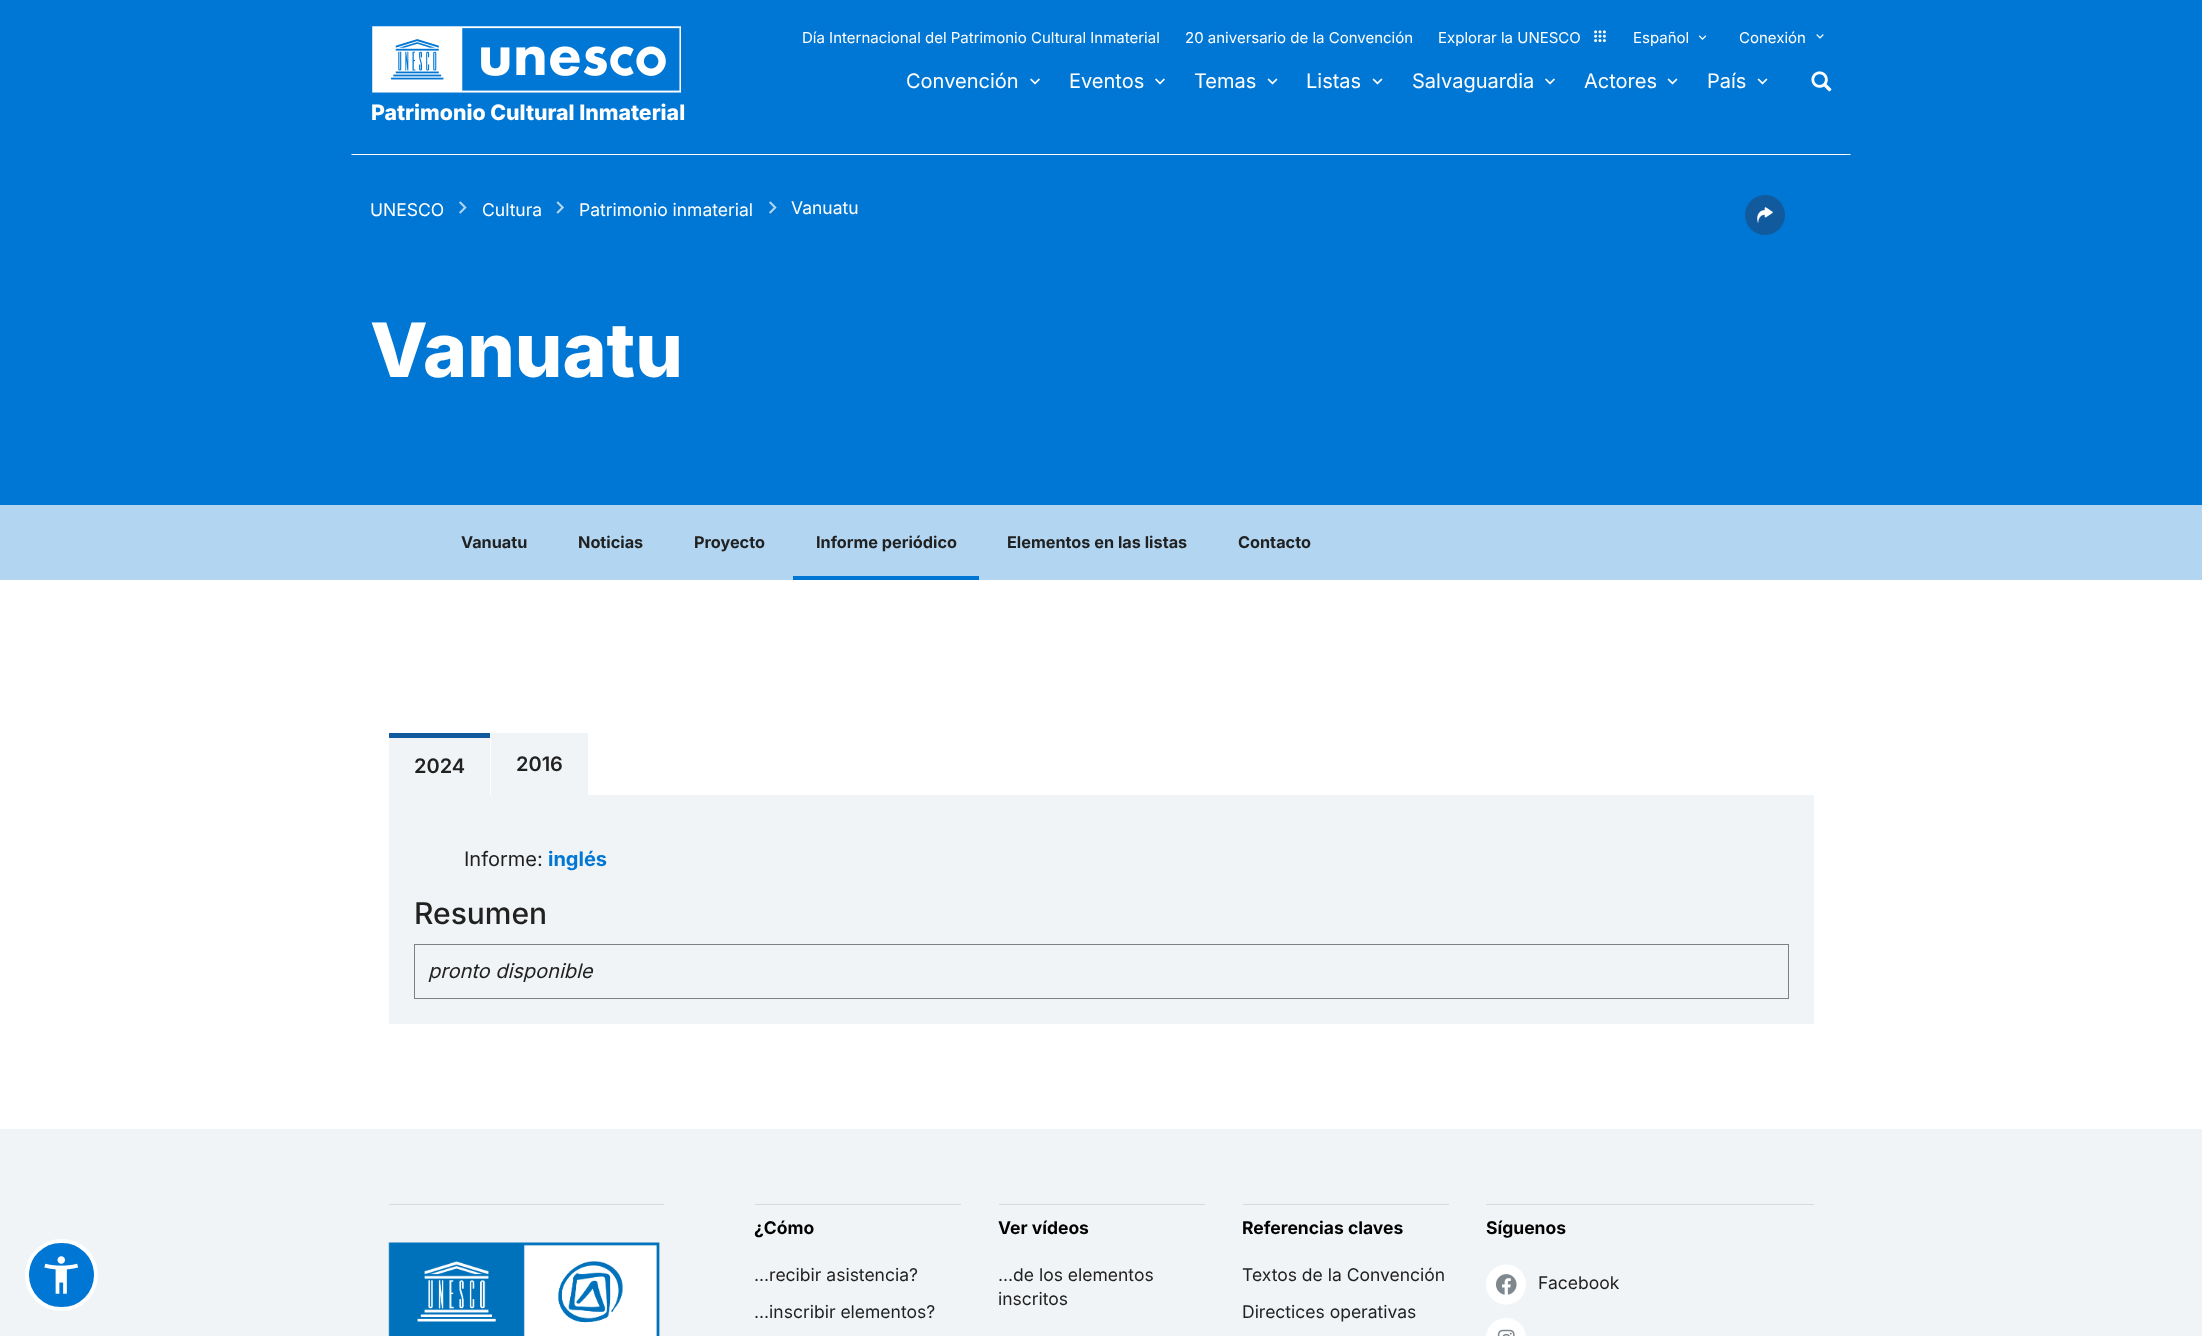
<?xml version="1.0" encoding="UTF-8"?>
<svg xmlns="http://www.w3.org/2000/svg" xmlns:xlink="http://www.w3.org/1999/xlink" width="2202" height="1336">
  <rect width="100%" height="100%" fill="#ffffff" />
  <rect width="2202" height="505" fill="#0077d4" />
  <path d="M 1851 155 h -1500 l 1 -1 h 1498 z" fill="#ffffff" />
  <image x="1594" y="30" width="12" height="13" xlink:href="image1.png" />
  <image x="1698" y="35" width="9" height="5" xlink:href="image2.png" />
  <image x="1816" y="34" width="8" height="5" xlink:href="image3.png" />
  <image x="1030" y="78" width="10" height="7" xlink:href="image4.png" />
  <image x="1155" y="78" width="10" height="7" xlink:href="image4.png" />
  <image x="1267" y="78" width="11" height="7" xlink:href="image5.png" />
  <image x="1372" y="78" width="11" height="7" xlink:href="image5.png" />
  <image x="1545" y="78" width="10" height="7" xlink:href="image4.png" />
  <image x="1667" y="78" width="11" height="7" xlink:href="image5.png" />
  <image x="1757" y="78" width="11" height="7" xlink:href="image5.png" />
  <image x="1811" y="71" width="21" height="21" xlink:href="image6.png" />
  <image x="372" y="26" width="309" height="67" xlink:href="image7.png" />
  <image x="459" y="201" width="8" height="13" xlink:href="image8.png" />
  <image x="556" y="201" width="9" height="13" xlink:href="image9.png" />
  <image x="769" y="201" width="8" height="13" xlink:href="image8.png" />
  <image x="1745" y="195" width="40" height="40" xlink:href="image10.png" />
  <rect y="505" width="2202" height="75" fill="#b2d6f2" />
  <rect x="793" y="576" width="186" height="4" fill="#0077d4" />
  <rect x="389" y="738" width="101" height="57" fill="#f1f4f6" />
  <rect x="389" y="733" width="101" height="5" fill="#115a9e" />
  <rect x="491" y="733" width="97" height="62" fill="#f1f4f6" />
  <rect x="389" y="795" width="1425" height="229" fill="#f1f4f6" />
  <rect x="414.5" y="944.5" width="1374" height="54" fill="none" stroke="#808080" />
  <rect y="1129" width="2202" height="207" fill="#f1f4f6" />
  <rect x="27" y="1241" width="69" height="68" rx="34" fill="#0077d4" stroke="#ffffff" stroke-width="4" />
  <image x="44" y="1256" width="35" height="38" xlink:href="image11.png" />
  <rect x="389" y="1204" width="275" height="1" fill="#d5dadd" />
  <image x="388" y="1242" width="272" height="94" xlink:href="image12.png" />
  <rect x="755" y="1204" width="206" height="1" fill="#d5dadd" />
  <rect x="999" y="1204" width="206" height="1" fill="#d5dadd" />
  <rect x="1243" y="1204" width="206" height="1" fill="#d5dadd" />
  <rect x="1486" y="1204" width="328" height="1" fill="#d5dadd" />
  <image x="1486" y="1264" width="40" height="41" xlink:href="image13.png" />
  <image x="1486" y="1318" width="40" height="18" xlink:href="image14.png" />
  <text x="802" y="43" style="font-family: Inter; font-size: 15px; fill: #ffffff">Día Internacional del Patrimonio Cultural Inmaterial</text>
  <text x="1185" y="43" style="font-family: Inter; font-size: 15px; fill: #ffffff">20 aniversario de la Convención</text>
  <text x="1438" y="43" style="font-family: Inter; font-size: 15px; fill: #ffffff">Explorar la UNESCO</text>
  <text x="1633" y="43" style="font-family: Inter; font-size: 15px; fill: #ffffff">Español</text>
  <text x="1739" y="43" style="font-family: Inter; font-size: 15px; fill: #ffffff">Conexión</text>
  <text x="906" y="88" style="font-family: Inter; font-size: 20px; fill: #ffffff">Convención</text>
  <text x="1069" y="88" style="font-family: Inter; font-size: 20px; fill: #ffffff">Eventos</text>
  <text x="1194" y="88" style="font-family: Inter; font-size: 20px; fill: #ffffff">Temas</text>
  <text x="1306" y="88" style="font-family: Inter; font-size: 20px; fill: #ffffff">Listas</text>
  <text x="1412" y="88" style="font-family: Inter; font-size: 20px; fill: #ffffff">Salvaguardia</text>
  <text x="1584" y="88" style="font-family: Inter; font-size: 20px; fill: #ffffff">Actores</text>
  <text x="1707" y="88" style="font-family: Inter; font-size: 20px; fill: #ffffff">País</text>
  <text x="371" y="120" style="font-family: Inter; font-size: 21.25px; font-weight: 800; fill: #ffffff">Patrimonio Cultural Inmaterial</text>
  <text x="370" y="216" style="font-family: Inter; font-size: 17.5px; fill: #ffffff">UNESCO</text>
  <text x="482" y="216" style="font-family: Inter; font-size: 17.5px; fill: #ffffff">Cultura</text>
  <text x="579" y="216" style="font-family: Inter; font-size: 17.5px; fill: #ffffff">Patrimonio inmaterial</text>
  <text x="791" y="214" style="font-family: Inter; font-size: 17.5px; fill: #ffffff">Vanuatu</text>
  <text x="370" y="377" style="font-family: Inter; font-size: 75px; font-weight: 800; fill: #ffffff">Vanuatu</text>
  <text x="461" y="548" style="font-family: Inter; font-size: 16.25px; font-weight: bold; fill: #212121">Vanuatu</text>
  <text x="578" y="548" style="font-family: Inter; font-size: 16.25px; font-weight: bold; fill: #212121">Noticias</text>
  <text x="694" y="548" style="font-family: Inter; font-size: 16.25px; font-weight: bold; fill: #212121">Proyecto</text>
  <text x="816" y="548" style="font-family: Inter; font-size: 16.25px; font-weight: bold; fill: #212121">Informe periódico</text>
  <text x="1007" y="548" style="font-family: Inter; font-size: 16.25px; font-weight: bold; fill: #212121">Elementos en las listas</text>
  <text x="1238" y="548" style="font-family: Inter; font-size: 16.25px; font-weight: bold; fill: #212121">Contacto</text>
  <text x="414" y="773" style="font-family: Inter; font-size: 20px; font-weight: 600; fill: #212121">2024</text>
  <text x="516" y="771" style="font-family: Inter; font-size: 20px; font-weight: 600; fill: #212121">2016</text>
  <text x="464" y="866" style="font-family: Inter; font-size: 20px; fill: #212121">Informe:</text>
  <text x="548" y="866" style="font-family: Inter; font-size: 20px; font-weight: bold; fill: #0077d4">inglés</text>
  <text x="414" y="924" style="font-family: Inter; font-size: 30px; font-weight: 500; fill: #212121">Resumen</text>
  <text x="428" y="978" style="font-family: Inter; font-size: 20px; font-style: italic; fill: #212121">pronto disponible</text>
  <text x="754" y="1234" style="font-family: Inter; font-size: 17.5px; font-weight: bold; fill: #000000">¿Cómo</text>
  <text x="754" y="1281" style="font-family: Inter; font-size: 17.5px; fill: #212121">...recibir asistencia?</text>
  <text x="754" y="1318" style="font-family: Inter; font-size: 17.5px; fill: #212121">...inscribir elementos?</text>
  <text x="998" y="1234" style="font-family: Inter; font-size: 17.5px; font-weight: bold; fill: #000000">Ver vídeos</text>
  <text x="998" y="1281" style="font-family: Inter; font-size: 17.5px; fill: #212121">...de los elementos</text>
  <text x="998" y="1305" style="font-family: Inter; font-size: 17.5px; fill: #212121">inscritos</text>
  <text x="1242" y="1234" style="font-family: Inter; font-size: 17.5px; font-weight: bold; fill: #000000">Referencias claves</text>
  <text x="1242" y="1281" style="font-family: Inter; font-size: 17.5px; fill: #212121">Textos de la Convención</text>
  <text x="1242" y="1318" style="font-family: Inter; font-size: 17.5px; fill: #212121">Directices operativas</text>
  <text x="1486" y="1234" style="font-family: Inter; font-size: 17.5px; font-weight: bold; fill: #000000">Síguenos</text>
  <text x="1538" y="1289" style="font-family: Inter; font-size: 17.5px; fill: #212121">Facebook</text>
</svg>
